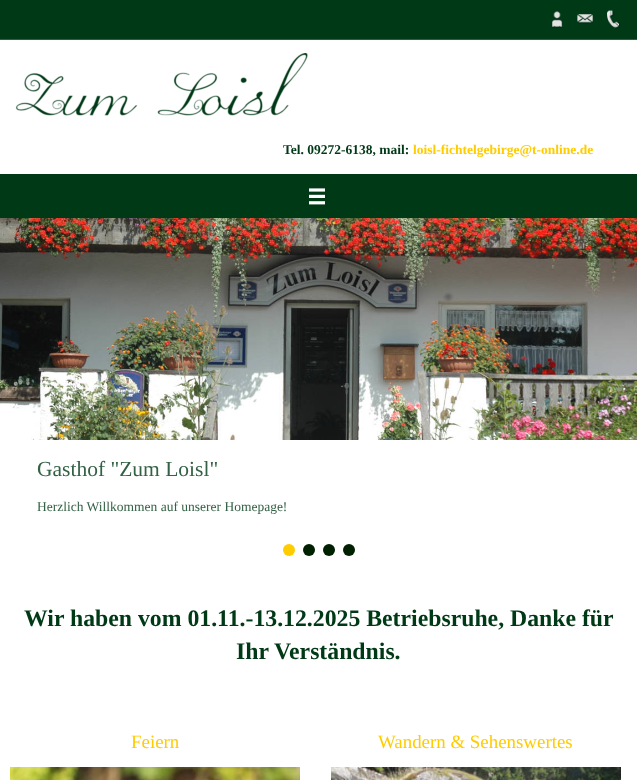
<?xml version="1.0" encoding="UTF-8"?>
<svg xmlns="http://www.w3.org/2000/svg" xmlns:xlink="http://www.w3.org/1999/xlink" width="637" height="780">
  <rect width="100%" height="100%" fill="#003916" />
  <rect y="39" width="637" height="1" fill="#28613e" />
  <image x="552" y="11" width="11" height="17" xlink:href="image1.png" />
  <image x="577" y="14" width="16" height="10" xlink:href="image2.png" />
  <image x="607" y="10" width="13" height="19" xlink:href="image3.png" />
  <rect y="40" width="637" height="134" fill="#ffffff" />
  <image x="15" y="53" width="293" height="63" xlink:href="image4.png" />
  <image x="309" y="188" width="16" height="17" xlink:href="image5.png" />
  <rect y="440" width="637" height="340" fill="#ffffff" />
  <image x="0" y="218" width="637" height="222" xlink:href="image6.png" />
  <circle cx="289" cy="550" r="6" fill="#ffcc00" />
  <circle cx="309" cy="550" r="6" fill="#002100" />
  <circle cx="329" cy="550" r="6" fill="#002100" />
  <circle cx="349" cy="550" r="6" fill="#002100" />
  <image x="10" y="767" width="290" height="13" xlink:href="image7.png" />
  <image x="331" y="767" width="290" height="13" xlink:href="image8.png" />
  <text x="283" y="154" style="font-family: Liberation Serif; font-size: 13.5px; font-weight: bold; fill: #003916">Tel. 09272-6138, mail:</text>
  <text x="413" y="154" style="font-family: Liberation Serif; font-size: 13.5px; font-weight: bold; fill: #ffcc00">loisl-fichtelgebirge@t-online.de</text>
  <text x="37" y="476" style="font-family: Liberation Serif; font-size: 21.5px; fill: #336145">Gasthof "Zum Loisl"</text>
  <text x="37" y="511" style="font-family: Liberation Serif; font-size: 13.5px; fill: #336145">Herzlich Willkommen auf unserer Homepage!</text>
  <text x="24" y="626" style="font-family: Liberation Serif; font-size: 23.75px; font-weight: bold; fill: #003916">Wir haben vom 01.11.-13.12.2025 Betriebsruhe, Danke für</text>
  <text x="236" y="659" style="font-family: Liberation Serif; font-size: 23.75px; font-weight: bold; fill: #003916">Ihr Verständnis.</text>
  <text x="131" y="748" style="font-family: Liberation Serif; font-size: 18.9px; fill: #ffcc00">Feiern</text>
  <text x="378" y="748" style="font-family: Liberation Serif; font-size: 18.9px; fill: #ffcc00">Wandern &amp; Sehenswertes</text>
</svg>
